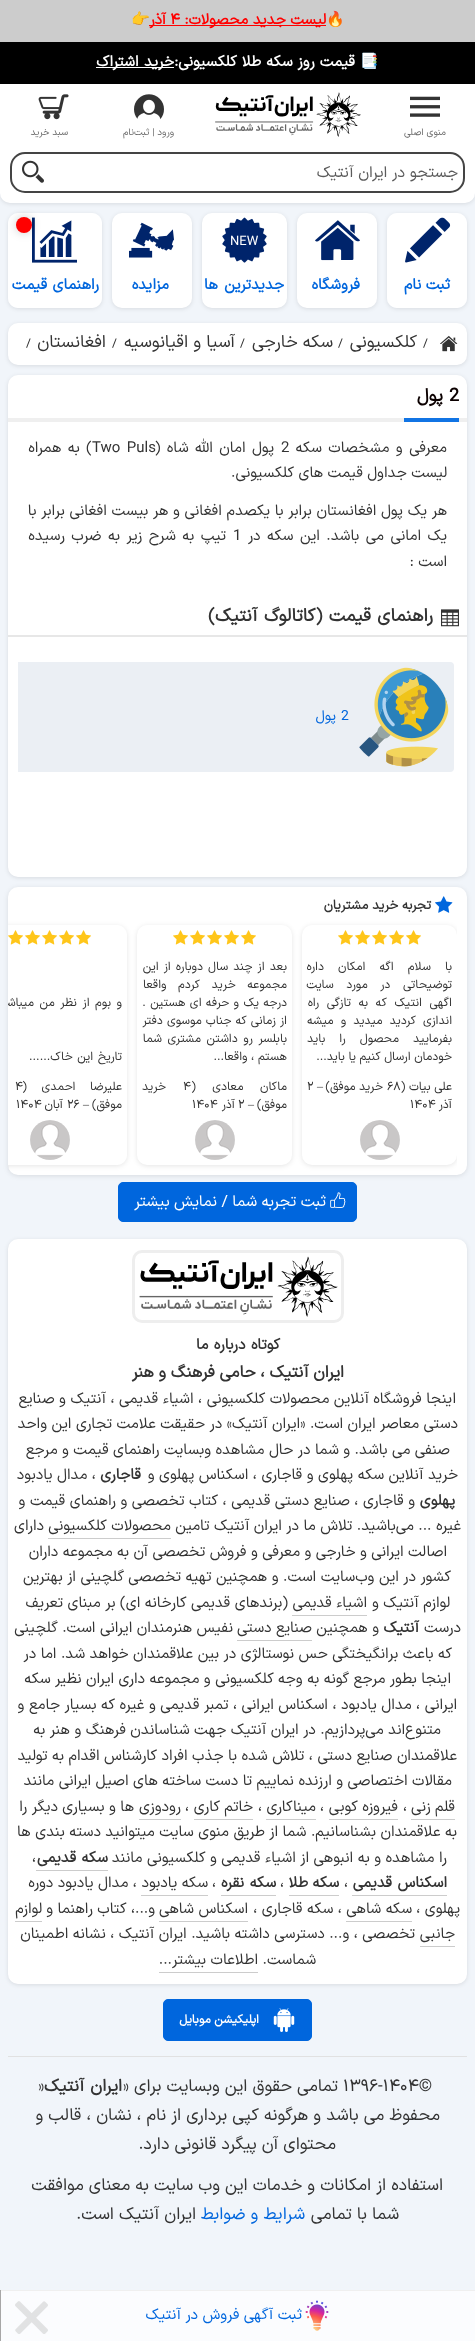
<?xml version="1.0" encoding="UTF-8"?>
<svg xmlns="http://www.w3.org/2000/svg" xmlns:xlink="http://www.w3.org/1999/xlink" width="475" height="2341">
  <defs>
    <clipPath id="clip1"><path d="M 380 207 h 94 v 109 h -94 z m 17 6 h 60 c 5.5 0 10 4.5 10 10 v 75 c 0 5.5 -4.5 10 -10 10 h -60 c -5.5 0 -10 -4.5 -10 -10 v -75 c 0 -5.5 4.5 -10 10 -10 z" clip-rule="evenodd" /></clipPath>
    <clipPath id="clip2"><path d="M 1 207 h 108 v 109 h -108 z m 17 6 h 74 c 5.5 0 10 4.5 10 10 v 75 c 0 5.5 -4.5 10 -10 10 h -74 c -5.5 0 -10 -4.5 -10 -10 v -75 c 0 -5.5 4.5 -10 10 -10 z" clip-rule="evenodd" /></clipPath>
    <clipPath id="clip3"><rect x="18" y="657" width="439" height="200" /></clipPath>
    <clipPath id="clip4"><rect x="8" y="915" width="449" height="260" /></clipPath>
    <clipPath id="clip5"><rect x="8" y="915" width="449" height="260" /></clipPath>
  </defs>
  <rect width="100%" height="100%" fill="#f1f5fa" />
  <rect x="1" y="2291" width="474" height="50" fill="#fbfcfe" />
  <rect y="1" width="475" height="203" rx="10" fill="#000000" fill-opacity="0.1" filter="blur(2px)" />
  <rect width="475" height="203" rx="10" fill="#ffffff" />
  <rect width="475" height="42" fill="#cccccc" />
  <rect y="42" width="475" height="42" fill="#000000" />
  <rect x="96" y="67" width="78" height="1" fill="#ffffff" />
  <image x="410" y="96" width="30" height="21" xlink:href="image1.png" />
  <image x="215" y="92" width="146" height="45" xlink:href="image2.png" />
  <image x="134" y="94" width="30" height="26" xlink:href="image3.png" />
  <image x="38" y="94" width="31" height="26" xlink:href="image4.png" />
  <rect x="11" y="153" width="453" height="39" rx="14" fill="none" stroke="#444444" stroke-width="2" />
  <image x="22" y="160" width="22" height="23" xlink:href="image5.png" />
  <g clip-path="url(#clip1)">
    <rect x="387" y="214" width="80" height="95" rx="10" fill="#000000" fill-opacity="0.1" filter="blur(2px)" />
  </g>
  <rect x="387" y="213" width="80" height="95" rx="10" fill="#ffffff" />
  <image x="405" y="217" width="46" height="46" xlink:href="image6.png" />
  <rect x="297" y="214" width="80" height="95" rx="10" fill="#000000" fill-opacity="0.1" filter="blur(2px)" />
  <rect x="297" y="213" width="80" height="95" rx="10" fill="#ffffff" />
  <image x="315" y="220" width="45" height="41" xlink:href="image7.png" />
  <rect x="202" y="214" width="85" height="95" rx="10" fill="#000000" fill-opacity="0.1" filter="blur(2px)" />
  <rect x="202" y="213" width="85" height="95" rx="10" fill="#ffffff" />
  <image x="222" y="217" width="45" height="46" xlink:href="image8.png" />
  <rect x="112" y="214" width="80" height="95" rx="10" fill="#000000" fill-opacity="0.1" filter="blur(2px)" />
  <rect x="112" y="213" width="80" height="95" rx="10" fill="#ffffff" />
  <image x="129" y="222" width="45" height="36" xlink:href="image9.png" />
  <g clip-path="url(#clip2)">
    <rect x="8" y="214" width="94" height="95" rx="10" fill="#000000" fill-opacity="0.1" filter="blur(2px)" />
  </g>
  <rect x="8" y="213" width="94" height="95" rx="10" fill="#ffffff" />
  <image x="32" y="217" width="45" height="46" xlink:href="image10.png" />
  <rect x="16" y="217" width="16" height="16" rx="8" fill="#000000" fill-opacity="0.2" filter="blur(5px)" />
  <circle cx="24" cy="225" r="8" fill="#ff0000" />
  <rect x="8" y="324" width="459" height="42" rx="10" fill="#000000" fill-opacity="0.1" filter="blur(2px)" />
  <rect x="8" y="323" width="459" height="42" rx="10" fill="#ffffff" />
  <image x="440" y="335" width="18" height="17" xlink:href="image11.png" />
  <rect x="8" y="376" width="459" height="502" rx="10" fill="#000000" fill-opacity="0.1" filter="blur(2px)" />
  <rect x="8" y="375" width="459" height="502" rx="10" fill="#ffffff" />
  <rect x="8" y="418" width="459" height="4" fill="#efefef" />
  <rect x="404" y="418" width="55" height="4" fill="#1174e4" />
  <image x="441" y="609" width="18" height="18" xlink:href="image12.png" />
  <rect x="8" y="635" width="459" height="2" fill="#e7e7e7" />
  <g clip-path="url(#clip3)">
    <rect x="15" y="662" width="439" height="110" rx="4" fill="#ebeff4" />
  </g>
  <image x="359" y="667" width="90" height="100" xlink:href="image13.png" />
  <rect x="8" y="888" width="459" height="288" rx="10" fill="#000000" fill-opacity="0.1" filter="blur(2.5px)" />
  <rect x="8" y="887" width="459" height="288" rx="10" fill="#ffffff" />
  <image x="435" y="896" width="18" height="17" xlink:href="image14.png" />
  <g clip-path="url(#clip4)">
    <rect x="302" y="926" width="155" height="240" rx="10" fill="#000000" fill-opacity="0.1" filter="blur(2.5px)" />
  </g>
  <rect x="302" y="925" width="155" height="240" rx="10" fill="#ffffff" />
  <image x="406" y="930" width="15" height="15" xlink:href="image15.png" />
  <image x="389" y="930" width="15" height="15" xlink:href="image15.png" />
  <image x="372" y="930" width="15" height="15" xlink:href="image15.png" />
  <image x="355" y="930" width="15" height="15" xlink:href="image15.png" />
  <image x="338" y="930" width="15" height="15" xlink:href="image15.png" />
  <image x="360" y="1120" width="40" height="40" xlink:href="image16.png" />
  <rect x="137" y="926" width="155" height="240" rx="10" fill="#000000" fill-opacity="0.1" filter="blur(2.5px)" />
  <rect x="137" y="925" width="155" height="240" rx="10" fill="#ffffff" />
  <image x="241" y="930" width="15" height="15" xlink:href="image15.png" />
  <image x="224" y="930" width="15" height="15" xlink:href="image15.png" />
  <image x="207" y="930" width="15" height="15" xlink:href="image15.png" />
  <image x="190" y="930" width="15" height="15" xlink:href="image15.png" />
  <image x="173" y="930" width="15" height="15" xlink:href="image15.png" />
  <image x="195" y="1120" width="40" height="40" xlink:href="image16.png" />
  <g clip-path="url(#clip4)">
    <rect x="-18" y="926" width="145" height="240" rx="10" fill="#000000" fill-opacity="0.1" filter="blur(2.5px)" />
  </g>
  <path d="M 8 925 h 109 c 5.5 0 10 4.5 10 10 v 220 c 0 5.5 -4.5 10 -10 10 h -109 z" fill="#ffffff" />
  <image x="76" y="930" width="15" height="15" xlink:href="image15.png" />
  <image x="59" y="930" width="15" height="15" xlink:href="image15.png" />
  <image x="42" y="930" width="15" height="15" xlink:href="image15.png" />
  <image x="25" y="930" width="15" height="15" xlink:href="image15.png" />
  <image x="8" y="930" width="15" height="15" xlink:href="image15.png" />
  <image x="30" y="1120" width="40" height="40" xlink:href="image17.png" />
  <rect x="118.5" y="1182.5" width="238" height="39" rx="4.5" fill="#0066dd" stroke="#0066dd" />
  <image x="330" y="1192" width="16" height="16" xlink:href="image18.png" />
  <rect x="8" y="1240" width="459" height="745" rx="10" fill="#000000" fill-opacity="0.1" filter="blur(2px)" />
  <rect x="8" y="1239" width="459" height="745" rx="10" fill="#ffffff" />
  <rect x="133.5" y="1251.5" width="209" height="70" rx="8.5" fill="none" stroke="#eeeeee" stroke-width="3" />
  <image x="139" y="1256" width="199" height="61" xlink:href="image19.png" />
  <rect x="48" y="1538" width="123" height="1" fill="#cccccc" />
  <rect x="292" y="1615" width="75" height="1" fill="#cccccc" />
  <rect x="237" y="1640" width="75" height="1" fill="#cccccc" />
  <rect x="411" y="1819" width="44" height="1" fill="#cccccc" />
  <rect x="329" y="1819" width="69" height="1" fill="#cccccc" />
  <rect x="266" y="1819" width="50" height="1" fill="#cccccc" />
  <rect x="194" y="1819" width="59" height="1" fill="#cccccc" />
  <rect x="139" y="1819" width="42" height="1" fill="#cccccc" />
  <rect x="36" y="1870" width="72" height="1" fill="#cccccc" />
  <rect x="352" y="1895" width="95" height="1" fill="#cccccc" />
  <rect x="289" y="1895" width="50" height="1" fill="#cccccc" />
  <rect x="221" y="1895" width="55" height="1" fill="#cccccc" />
  <rect x="141" y="1895" width="67" height="1" fill="#cccccc" />
  <rect x="346" y="1921" width="66" height="1" fill="#cccccc" />
  <rect x="159" y="1921" width="89" height="1" fill="#cccccc" />
  <rect x="15" y="1921" width="27" height="1" fill="#cccccc" />
  <rect x="420" y="1946" width="35" height="1" fill="#cccccc" />
  <rect x="159" y="1972" width="99" height="1" fill="#cccccc" />
  <rect x="163.5" y="1999.5" width="148" height="41" rx="4.5" fill="#0066dd" stroke="#0066dd" />
  <image x="273" y="2008" width="22" height="24" xlink:href="image20.png" />
  <rect x="8" y="2056" width="459" height="1" fill="#e1e1e1" />
  <rect y="2290" width="475" height="1" fill="#efefef" />
  <rect y="2290" width="1" height="51" fill="#a7a7a7" />
  <image x="305" y="2300" width="24" height="31" xlink:href="image21.png" />
  <image x="15" y="2301" width="33" height="33" xlink:href="image22.png" />
  <text x="326" y="24" style="font-family: Noto Color Emoji; font-size: 15px; font-weight: bold; fill: #000000">🔥</text>
  <rect x="149" y="25" width="177" height="1" fill="#ff0000" />
  <text x="326" y="24" style="font-family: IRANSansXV; font-size: 15px; font-weight: bold; direction: rtl; fill: #ff0000">لیست جدید محصولات:</text>
  <text x="170" y="24" style="font-family: IRANSansXV; font-size: 15px; font-weight: bold; fill: #ff0000">۴</text>
  <text x="166" y="24" style="font-family: IRANSansXV; font-size: 15px; font-weight: bold; direction: rtl; fill: #ff0000">آذر</text>
  <text x="131" y="24" style="font-family: Noto Color Emoji; font-size: 15px; font-weight: bold; fill: #000000">👉</text>
  <text x="379" y="66" style="font-family: Noto Color Emoji; font-size: 15px; font-weight: bold; direction: rtl; fill: #ffffff">📑</text>
  <text x="355" y="66" word-spacing="0.5" style="font-family: IRANSansXV; font-size: 15px; font-weight: bold; direction: rtl; fill: #ffffff">قیمت روز سکه طلا کلکسیونی:</text>
  <text x="174" y="66" word-spacing="1" style="font-family: IRANSansXV; font-size: 15px; font-weight: bold; direction: rtl; fill: #ffffff">خرید اشتراک</text>
  <text x="446" y="135" style="font-family: IRANSansXV; font-size: 9.5px; direction: rtl; fill: #666666">منوی اصلی</text>
  <text x="174" y="135" style="font-family: IRANSansXV; font-size: 9.5px; direction: rtl; fill: #666666">ورود | ثبت‌نام</text>
  <text x="68" y="135" style="font-family: IRANSansXV; font-size: 9.5px; direction: rtl; fill: #666666">سبد خرید</text>
  <text x="458" y="177" style="font-family: IRANSansXV; font-size: 15.6px; direction: rtl; fill: #5b5b5b">جستجو در ایران آنتیک</text>
  <text x="450" y="289" style="font-family: IRANSansXV; font-size: 15px; font-weight: bold; direction: rtl; fill: #0066dd">ثبت نام</text>
  <text x="360" y="289" style="font-family: IRANSansXV; font-size: 15px; font-weight: bold; direction: rtl; fill: #0066dd">فروشگاه</text>
  <text x="230" y="245" style="font-family: IRANSansXV; font-size: 13px; fill: #ffffff">NEW</text>
  <text x="284" y="289" word-spacing="2" style="font-family: IRANSansXV; font-size: 15px; font-weight: bold; direction: rtl; fill: #0066dd">جدیدترین ها</text>
  <text x="169" y="289" style="font-family: IRANSansXV; font-size: 15px; font-weight: bold; direction: rtl; fill: #0066dd">مزایده</text>
  <text x="99" y="289" word-spacing="1" style="font-family: IRANSansXV; font-size: 15px; font-weight: bold; direction: rtl; fill: #0066dd">راهنمای قیمت</text>
  <text x="423" y="347" style="font-family: IRANSansXV; font-size: 12px; fill: #333333">/</text>
  <text x="417" y="347" style="font-family: IRANSansXV; font-size: 17.25px; direction: rtl; fill: #333333">کلکسیونی</text>
  <text x="338" y="347" style="font-family: IRANSansXV; font-size: 12px; fill: #333333">/</text>
  <text x="333" y="347" style="font-family: IRANSansXV; font-size: 17.25px; direction: rtl; fill: #333333">سکه خارجی</text>
  <text x="240" y="347" style="font-family: IRANSansXV; font-size: 12px; fill: #333333">/</text>
  <text x="235" y="347" style="font-family: IRANSansXV; font-size: 17.25px; direction: rtl; fill: #333333">آسیا و اقیانوسیه</text>
  <text x="112" y="347" style="font-family: IRANSansXV; font-size: 12px; fill: #333333">/</text>
  <text x="106" y="347" style="font-family: IRANSansXV; font-size: 17.25px; direction: rtl; fill: #333333">افغانستان</text>
  <text x="26" y="347" style="font-family: IRANSansXV; font-size: 12px; fill: #333333">/</text>
  <text x="449" y="401" style="font-family: IRANSansXV; font-size: 18px; font-weight: bold; fill: #0b0000">2</text>
  <text x="443" y="401" style="font-family: IRANSansXV; font-size: 18px; font-weight: bold; direction: rtl; fill: #0b0000">پول</text>
  <text x="447" y="452" word-spacing="2" style="font-family: IRANSansXV; font-size: 15px; direction: rtl; fill: #333333">معرفی و مشخصات سکه</text>
  <text x="281" y="452" style="font-family: IRANSansXV; font-size: 15px; fill: #333333">2</text>
  <text x="274" y="452" word-spacing="2" style="font-family: IRANSansXV; font-size: 15px; direction: rtl; fill: #333333">پول امان الله شاه (</text>
  <text x="92" y="452" word-spacing="2" style="font-family: IRANSansXV; font-size: 15px; fill: #333333">Two Puls</text>
  <text x="92" y="452" word-spacing="2" style="font-family: IRANSansXV; font-size: 15px; direction: rtl; fill: #333333">) به همراه</text>
  <text x="447" y="477" style="font-family: IRANSansXV; font-size: 15px; direction: rtl; fill: #333333">لیست جداول قیمت های کلکسیونی.</text>
  <text x="447" y="515" word-spacing="0.25" style="font-family: IRANSansXV; font-size: 15px; direction: rtl; fill: #333333">هر یک پول افغانستان برابر با یکصدم افغانی و هر بیست افغانی برابر با</text>
  <text x="447" y="540" word-spacing="2" style="font-family: IRANSansXV; font-size: 15px; direction: rtl; fill: #333333">یک امانی می باشد. این سکه در</text>
  <text x="233" y="540" style="font-family: IRANSansXV; font-size: 15px; fill: #333333">1</text>
  <text x="226" y="540" word-spacing="2" style="font-family: IRANSansXV; font-size: 15px; direction: rtl; fill: #333333">تیپ به شرح زیر به ضرب رسیده</text>
  <text x="447" y="566" style="font-family: IRANSansXV; font-size: 15px; direction: rtl; fill: #333333">است :</text>
  <text x="433" y="621" word-spacing="1" style="font-family: IRANSansXV; font-size: 18px; font-weight: bold; direction: rtl; fill: #333333">راهنمای قیمت (کاتالوگ آنتیک)</text>
  <text x="341" y="720" style="font-family: IRANSansXV; font-size: 14px; fill: #0066dd">2</text>
  <text x="336" y="720" style="font-family: IRANSansXV; font-size: 14px; direction: rtl; fill: #0066dd">پول</text>
  <text x="431" y="909" style="font-family: IRANSansXV; font-size: 13px; font-weight: bold; direction: rtl; fill: #333333">تجربه خرید مشتریان</text>
  <text x="452" y="970" word-spacing="10.5" style="font-family: IRANSansXV; font-size: 12px; direction: rtl; fill: #333333">با سلام اگه امکان داره</text>
  <text x="452" y="988" word-spacing="9" style="font-family: IRANSansXV; font-size: 12px; direction: rtl; fill: #333333">توضیحاتی در مورد سایت</text>
  <text x="452" y="1006" word-spacing="4" style="font-family: IRANSansXV; font-size: 12px; direction: rtl; fill: #333333">اگهی انتیک که به تازگی راه</text>
  <text x="452" y="1024" word-spacing="3.5" style="font-family: IRANSansXV; font-size: 12px; direction: rtl; fill: #333333">اندازی کردید میدید و میشه</text>
  <text x="452" y="1042" word-spacing="10.5" style="font-family: IRANSansXV; font-size: 12px; direction: rtl; fill: #333333">بفرمایید محصول را باید</text>
  <text x="452" y="1060" style="font-family: IRANSansXV; font-size: 12px; direction: rtl; fill: #333333">خودمان ارسال کنیم یا باید...</text>
  <text x="452" y="1090" style="font-family: IRANSansXV; font-size: 12px; direction: rtl; fill: #333333">علی بیات (</text>
  <text x="387" y="1090" style="font-family: IRANSansXV; font-size: 12px; fill: #333333">۶۸</text>
  <text x="383" y="1090" style="font-family: IRANSansXV; font-size: 12px; direction: rtl; fill: #333333">خرید موفق)</text>
  <text x="317" y="1090" style="font-family: Liberation Serif; font-size: 12px; fill: #333333">–</text>
  <text x="307" y="1090" style="font-family: IRANSansXV; font-size: 12px; fill: #333333">۲</text>
  <text x="452" y="1108" style="font-family: IRANSansXV; font-size: 12px; direction: rtl; fill: #333333">آذر</text>
  <text x="410" y="1108" style="font-family: IRANSansXV; font-size: 12px; fill: #333333">۱۴۰۴</text>
  <text x="287" y="970" word-spacing="1.5" style="font-family: IRANSansXV; font-size: 12px; direction: rtl; fill: #333333">بعد از چند سال دوباره از این</text>
  <text x="287" y="988" word-spacing="8" style="font-family: IRANSansXV; font-size: 12px; direction: rtl; fill: #333333">مجموعه خرید کردم واقعا</text>
  <text x="287" y="1006" word-spacing="0.75" style="font-family: IRANSansXV; font-size: 12px; direction: rtl; fill: #333333">درجه یک و حرفه ای هستین .</text>
  <text x="287" y="1024" word-spacing="0.5" style="font-family: IRANSansXV; font-size: 12px; direction: rtl; fill: #333333">از زمانی که جناب موسوی دفتر</text>
  <text x="287" y="1042" word-spacing="2" style="font-family: IRANSansXV; font-size: 12px; direction: rtl; fill: #333333">بابلسر رو داشتن مشتری شما</text>
  <text x="287" y="1060" style="font-family: IRANSansXV; font-size: 12px; direction: rtl; fill: #333333">هستم ، واقعا...</text>
  <text x="287" y="1090" word-spacing="13" style="font-family: IRANSansXV; font-size: 12px; direction: rtl; fill: #333333">ماکان معادی (</text>
  <text x="183" y="1090" style="font-family: IRANSansXV; font-size: 12px; fill: #333333">۴</text>
  <text x="166" y="1090" style="font-family: IRANSansXV; font-size: 12px; direction: rtl; fill: #333333">خرید</text>
  <text x="287" y="1108" style="font-family: IRANSansXV; font-size: 12px; direction: rtl; fill: #333333">موفق)</text>
  <text x="248" y="1108" style="font-family: Liberation Serif; font-size: 12px; fill: #333333">–</text>
  <text x="238" y="1108" style="font-family: IRANSansXV; font-size: 12px; fill: #333333">۲</text>
  <text x="235" y="1108" style="font-family: IRANSansXV; font-size: 12px; direction: rtl; fill: #333333">آذر</text>
  <text x="192" y="1108" style="font-family: IRANSansXV; font-size: 12px; fill: #333333">۱۴۰۴</text>
  <g clip-path="url(#clip5)">
    <text x="122" y="1006" word-spacing="2" style="font-family: IRANSansXV; font-size: 12px; direction: rtl; fill: #333333">و بوم از نظر من میباشد</text>
  </g>
  <text x="122" y="1060" word-spacing="1" style="font-family: IRANSansXV; font-size: 12px; direction: rtl; fill: #333333">تاریخ این خاک......</text>
  <text x="122" y="1090" word-spacing="11" style="font-family: IRANSansXV; font-size: 12px; direction: rtl; fill: #333333">علیرضا احمدی (</text>
  <text x="15" y="1090" style="font-family: IRANSansXV; font-size: 12px; fill: #333333">۴</text>
  <text x="122" y="1108" style="font-family: IRANSansXV; font-size: 12px; direction: rtl; fill: #333333">موفق)</text>
  <text x="83" y="1108" style="font-family: Liberation Serif; font-size: 12px; fill: #333333">–</text>
  <text x="67" y="1108" style="font-family: IRANSansXV; font-size: 12px; fill: #333333">۲۶</text>
  <text x="63" y="1108" style="font-family: IRANSansXV; font-size: 12px; direction: rtl; fill: #333333">آبان</text>
  <text x="16" y="1108" style="font-family: IRANSansXV; font-size: 12px; fill: #333333">۱۴۰۴</text>
  <text x="326" y="1206" word-spacing="-0.25" style="font-family: IRANSansXV; font-size: 15.6px; direction: rtl; fill: #ffffff">ثبت تجربه شما / نمایش بیشتر</text>
  <text x="280" y="1349" word-spacing="1" style="font-family: IRANSansXV; font-size: 15px; font-weight: bold; direction: rtl; fill: #333333">کوتاه درباره ما</text>
  <text x="344" y="1377" word-spacing="-0.25" style="font-family: IRANSansXV; font-size: 16.5px; font-weight: bold; direction: rtl; fill: #333333">ایران آنتیک ، حامی فرهنگ و هنر</text>
  <text x="456" y="1403" style="font-family: IRANSansXV; font-size: 15px; direction: rtl; fill: #333333">اینجا فروشگاه آنلاین محصولات کلکسیونی ، اشیاء قدیمی ، آنتیک و صنایع</text>
  <text x="458" y="1428" style="font-family: IRANSansXV; font-size: 15px; direction: rtl; fill: #333333">دستی معاصر ایران است. «ایران آنتیک» در حقیقت علامت تجاری این واحد</text>
  <text x="450" y="1454" style="font-family: IRANSansXV; font-size: 15px; direction: rtl; fill: #333333">صنفی می باشد. و شما در حال مشاهده وبسایت راهنمای قیمت و مرجع</text>
  <text x="458" y="1479" style="font-family: IRANSansXV; font-size: 15px; direction: rtl; fill: #333333">خرید آنلاین سکه پهلوی و قاجاری ، اسکناس پهلوی و</text>
  <text x="141" y="1479" style="font-family: IRANSansXV; font-size: 15px; font-weight: bold; direction: rtl; fill: #333333">قاجاری</text>
  <text x="96" y="1479" style="font-family: IRANSansXV; font-size: 15px; direction: rtl; fill: #333333">، مدال یادبود</text>
  <text x="455" y="1505" style="font-family: IRANSansXV; font-size: 15px; font-weight: bold; direction: rtl; fill: #333333">پهلوی</text>
  <text x="415" y="1505" style="font-family: IRANSansXV; font-size: 15px; direction: rtl; fill: #333333">و قاجاری ، صنایع دستی قدیمی ، کتاب تخصصی و راهنمای قیمت و</text>
  <text x="461" y="1530" style="font-family: IRANSansXV; font-size: 15px; direction: rtl; fill: #333333">غیره ... می‌باشید. تلاش ما در ایران آنتیک تامین</text>
  <text x="171" y="1530" style="font-family: IRANSansXV; font-size: 15px; direction: rtl; fill: #333333">محصولات کلکسیونی</text>
  <text x="44" y="1530" style="font-family: IRANSansXV; font-size: 15px; direction: rtl; fill: #333333">دارای</text>
  <text x="447" y="1556" style="font-family: IRANSansXV; font-size: 15px; direction: rtl; fill: #333333">اصالت ایرانی و خارجی و معرفی و فروش تخصصی آن به مجموعه داران</text>
  <text x="451" y="1581" style="font-family: IRANSansXV; font-size: 15px; direction: rtl; fill: #333333">کشور در این وب‌سایت است. و همچنین تهیه تخصصی گلچینی از بهترین</text>
  <text x="450" y="1607" style="font-family: IRANSansXV; font-size: 15px; direction: rtl; fill: #333333">لوازم آنتیک و</text>
  <text x="367" y="1607" style="font-family: IRANSansXV; font-size: 15px; direction: rtl; fill: #333333">اشیاء قدیمی</text>
  <text x="288" y="1607" style="font-family: IRANSansXV; font-size: 15px; direction: rtl; fill: #333333">(برندهای قدیمی کارخانه ای) بر مبنای تعریف</text>
  <text x="461" y="1632" style="font-family: IRANSansXV; font-size: 15px; direction: rtl; fill: #333333">درست</text>
  <text x="419" y="1632" style="font-family: IRANSansXV; font-size: 15px; font-weight: bold; direction: rtl; fill: #333333">آنتیک</text>
  <text x="379" y="1632" style="font-family: IRANSansXV; font-size: 15px; direction: rtl; fill: #333333">و همچنین</text>
  <text x="312" y="1632" style="font-family: IRANSansXV; font-size: 15px; direction: rtl; fill: #333333">صنایع دستی</text>
  <text x="233" y="1632" style="font-family: IRANSansXV; font-size: 15px; direction: rtl; fill: #333333">نفیس هنرمندان ایرانی است. گلچینی</text>
  <text x="452" y="1658" style="font-family: IRANSansXV; font-size: 15px; direction: rtl; fill: #333333">که باعث برانگیختگی حس نوستالژی در بین علاقمندان خواهد شد. اما در</text>
  <text x="451" y="1683" style="font-family: IRANSansXV; font-size: 15px; direction: rtl; fill: #333333">اینجا بطور مرجع گونه به وجه کلکسیونی و مجموعه داری ایران نظیر سکه</text>
  <text x="457" y="1709" style="font-family: IRANSansXV; font-size: 15px; direction: rtl; fill: #333333">ایرانی ، مدال یادبود ، اسکناس ایرانی ، تمبر قدیمی و غیره که بسیار جامع و</text>
  <text x="441" y="1734" style="font-family: IRANSansXV; font-size: 15px; direction: rtl; fill: #333333">متنوع‌اند می‌پردازیم. در ایران آنتیک جهت شناساندن فرهنگ و هنر به</text>
  <text x="457" y="1760" style="font-family: IRANSansXV; font-size: 15px; direction: rtl; fill: #333333">علاقمندان صنایع دستی ، تلاش شده با جذب افراد کارشناس اقدام به تولید</text>
  <text x="452" y="1785" style="font-family: IRANSansXV; font-size: 15px; direction: rtl; fill: #333333">مقالات اختصاصی و ارزنده نماییم تا دست ساخته های اصیل ایرانی مانند</text>
  <text x="455" y="1811" style="font-family: IRANSansXV; font-size: 15px; direction: rtl; fill: #333333">قلم زنی</text>
  <text x="403" y="1811" style="font-family: IRANSansXV; font-size: 15px; fill: #333333">،</text>
  <text x="398" y="1811" style="font-family: IRANSansXV; font-size: 15px; direction: rtl; fill: #333333">فیروزه کوبی</text>
  <text x="320" y="1811" style="font-family: IRANSansXV; font-size: 15px; fill: #333333">،</text>
  <text x="316" y="1811" style="font-family: IRANSansXV; font-size: 15px; direction: rtl; fill: #333333">میناکاری</text>
  <text x="258" y="1811" style="font-family: IRANSansXV; font-size: 15px; fill: #333333">،</text>
  <text x="253" y="1811" style="font-family: IRANSansXV; font-size: 15px; direction: rtl; fill: #333333">خاتم کاری</text>
  <text x="185" y="1811" style="font-family: IRANSansXV; font-size: 15px; fill: #333333">،</text>
  <text x="181" y="1811" style="font-family: IRANSansXV; font-size: 15px; direction: rtl; fill: #333333">رودوزی</text>
  <text x="134" y="1811" style="font-family: IRANSansXV; font-size: 15px; direction: rtl; fill: #333333">ها و بسیاری دیگر را</text>
  <text x="457" y="1836" style="font-family: IRANSansXV; font-size: 15px; direction: rtl; fill: #333333">به علاقمندان بشناسانیم. شما از طریق منوی سایت میتوانید دسته بندی ها</text>
  <text x="447" y="1862" style="font-family: IRANSansXV; font-size: 15px; direction: rtl; fill: #333333">را مشاهده و به انبوهی از اشیاء قدیمی و کلکسیونی مانند</text>
  <text x="108" y="1862" word-spacing="1" style="font-family: IRANSansXV; font-size: 15px; font-weight: bold; direction: rtl; fill: #333333">سکه قدیمی</text>
  <text x="32" y="1862" style="font-family: IRANSansXV; font-size: 15px; fill: #333333">،</text>
  <text x="447" y="1887" word-spacing="1" style="font-family: IRANSansXV; font-size: 15px; font-weight: bold; direction: rtl; fill: #333333">اسکناس قدیمی</text>
  <text x="344" y="1887" style="font-family: IRANSansXV; font-size: 15px; fill: #333333">،</text>
  <text x="339" y="1887" style="font-family: IRANSansXV; font-size: 15px; font-weight: bold; direction: rtl; fill: #333333">سکه طلا</text>
  <text x="280" y="1887" style="font-family: IRANSansXV; font-size: 15px; fill: #333333">،</text>
  <text x="276" y="1887" word-spacing="1" style="font-family: IRANSansXV; font-size: 15px; font-weight: bold; direction: rtl; fill: #333333">سکه نقره</text>
  <text x="212" y="1887" style="font-family: IRANSansXV; font-size: 15px; fill: #333333">،</text>
  <text x="208" y="1887" style="font-family: IRANSansXV; font-size: 15px; direction: rtl; fill: #333333">سکه یادبود</text>
  <text x="137" y="1887" style="font-family: IRANSansXV; font-size: 15px; direction: rtl; fill: #333333">، مدال یادبود دوره</text>
  <text x="460" y="1913" style="font-family: IRANSansXV; font-size: 15px; direction: rtl; fill: #333333">پهلوی ،</text>
  <text x="412" y="1913" style="font-family: IRANSansXV; font-size: 15px; direction: rtl; fill: #333333">سکه شاهی</text>
  <text x="342" y="1913" style="font-family: IRANSansXV; font-size: 15px; direction: rtl; fill: #333333">، سکه قاجاری ،</text>
  <text x="248" y="1913" style="font-family: IRANSansXV; font-size: 15px; direction: rtl; fill: #333333">اسکناس شاهی</text>
  <text x="155" y="1913" style="font-family: IRANSansXV; font-size: 15px; direction: rtl; fill: #333333">و...، کتاب راهنما و</text>
  <text x="42" y="1913" style="font-family: IRANSansXV; font-size: 15px; direction: rtl; fill: #333333">لوازم</text>
  <text x="455" y="1938" style="font-family: IRANSansXV; font-size: 15px; direction: rtl; fill: #333333">جانبی</text>
  <text x="415" y="1938" style="font-family: IRANSansXV; font-size: 15px; direction: rtl; fill: #333333">تخصصی ، و... دسترسی داشته باشید. ایران آنتیک ، نشانه اطمینان</text>
  <text x="316" y="1964" style="font-family: IRANSansXV; font-size: 15px; direction: rtl; fill: #333333">شماست.</text>
  <text x="258" y="1964" style="font-family: IRANSansXV; font-size: 15px; direction: rtl; fill: #333333">اطلاعات بیشتر...</text>
  <text x="259" y="2023" style="font-family: IRANSansXV; font-size: 12px; font-weight: bold; direction: rtl; fill: #ffffff">اپلیکیشن موبایل</text>
  <text x="343" y="2091" style="font-family: IRANSansXV; font-size: 17px; fill: #333333">۱۳۹۶-۱۴۰۴©</text>
  <text x="338" y="2091" style="font-family: IRANSansXV; font-size: 17px; direction: rtl; fill: #333333">تمامی حقوق این وبسایت برای «</text>
  <text x="122" y="2091" word-spacing="1" style="font-family: IRANSansXV; font-size: 17px; font-weight: bold; direction: rtl; fill: #333333">ایران آنتیک</text>
  <text x="38" y="2091" style="font-family: IRANSansXV; font-size: 17px; fill: #333333">»</text>
  <text x="440" y="2120" style="font-family: IRANSansXV; font-size: 17px; direction: rtl; fill: #333333">محفوظ می باشد و هرگونه کپی برداری از نام ، نشان ، قالب و</text>
  <text x="336" y="2149" style="font-family: IRANSansXV; font-size: 17px; direction: rtl; fill: #333333">محتوای آن پیگرد قانونی دارد.</text>
  <text x="443" y="2190" style="font-family: IRANSansXV; font-size: 17px; direction: rtl; fill: #333333">استفاده از امکانات و خدمات این وب سایت به معنای موافقت</text>
  <text x="399" y="2219" style="font-family: IRANSansXV; font-size: 17px; direction: rtl; fill: #333333">شما با تمامی</text>
  <text x="305" y="2219" style="font-family: IRANSansXV; font-size: 17px; direction: rtl; fill: #0066dd">شرایط و ضوابط</text>
  <text x="196" y="2219" style="font-family: IRANSansXV; font-size: 17px; direction: rtl; fill: #333333">ایران آنتیک است.</text>
  <text x="302" y="2319" style="font-family: IRANSansXV; font-size: 15px; direction: rtl; fill: #0066dd">ثبت آگهی فروش در آنتیک</text>
</svg>
